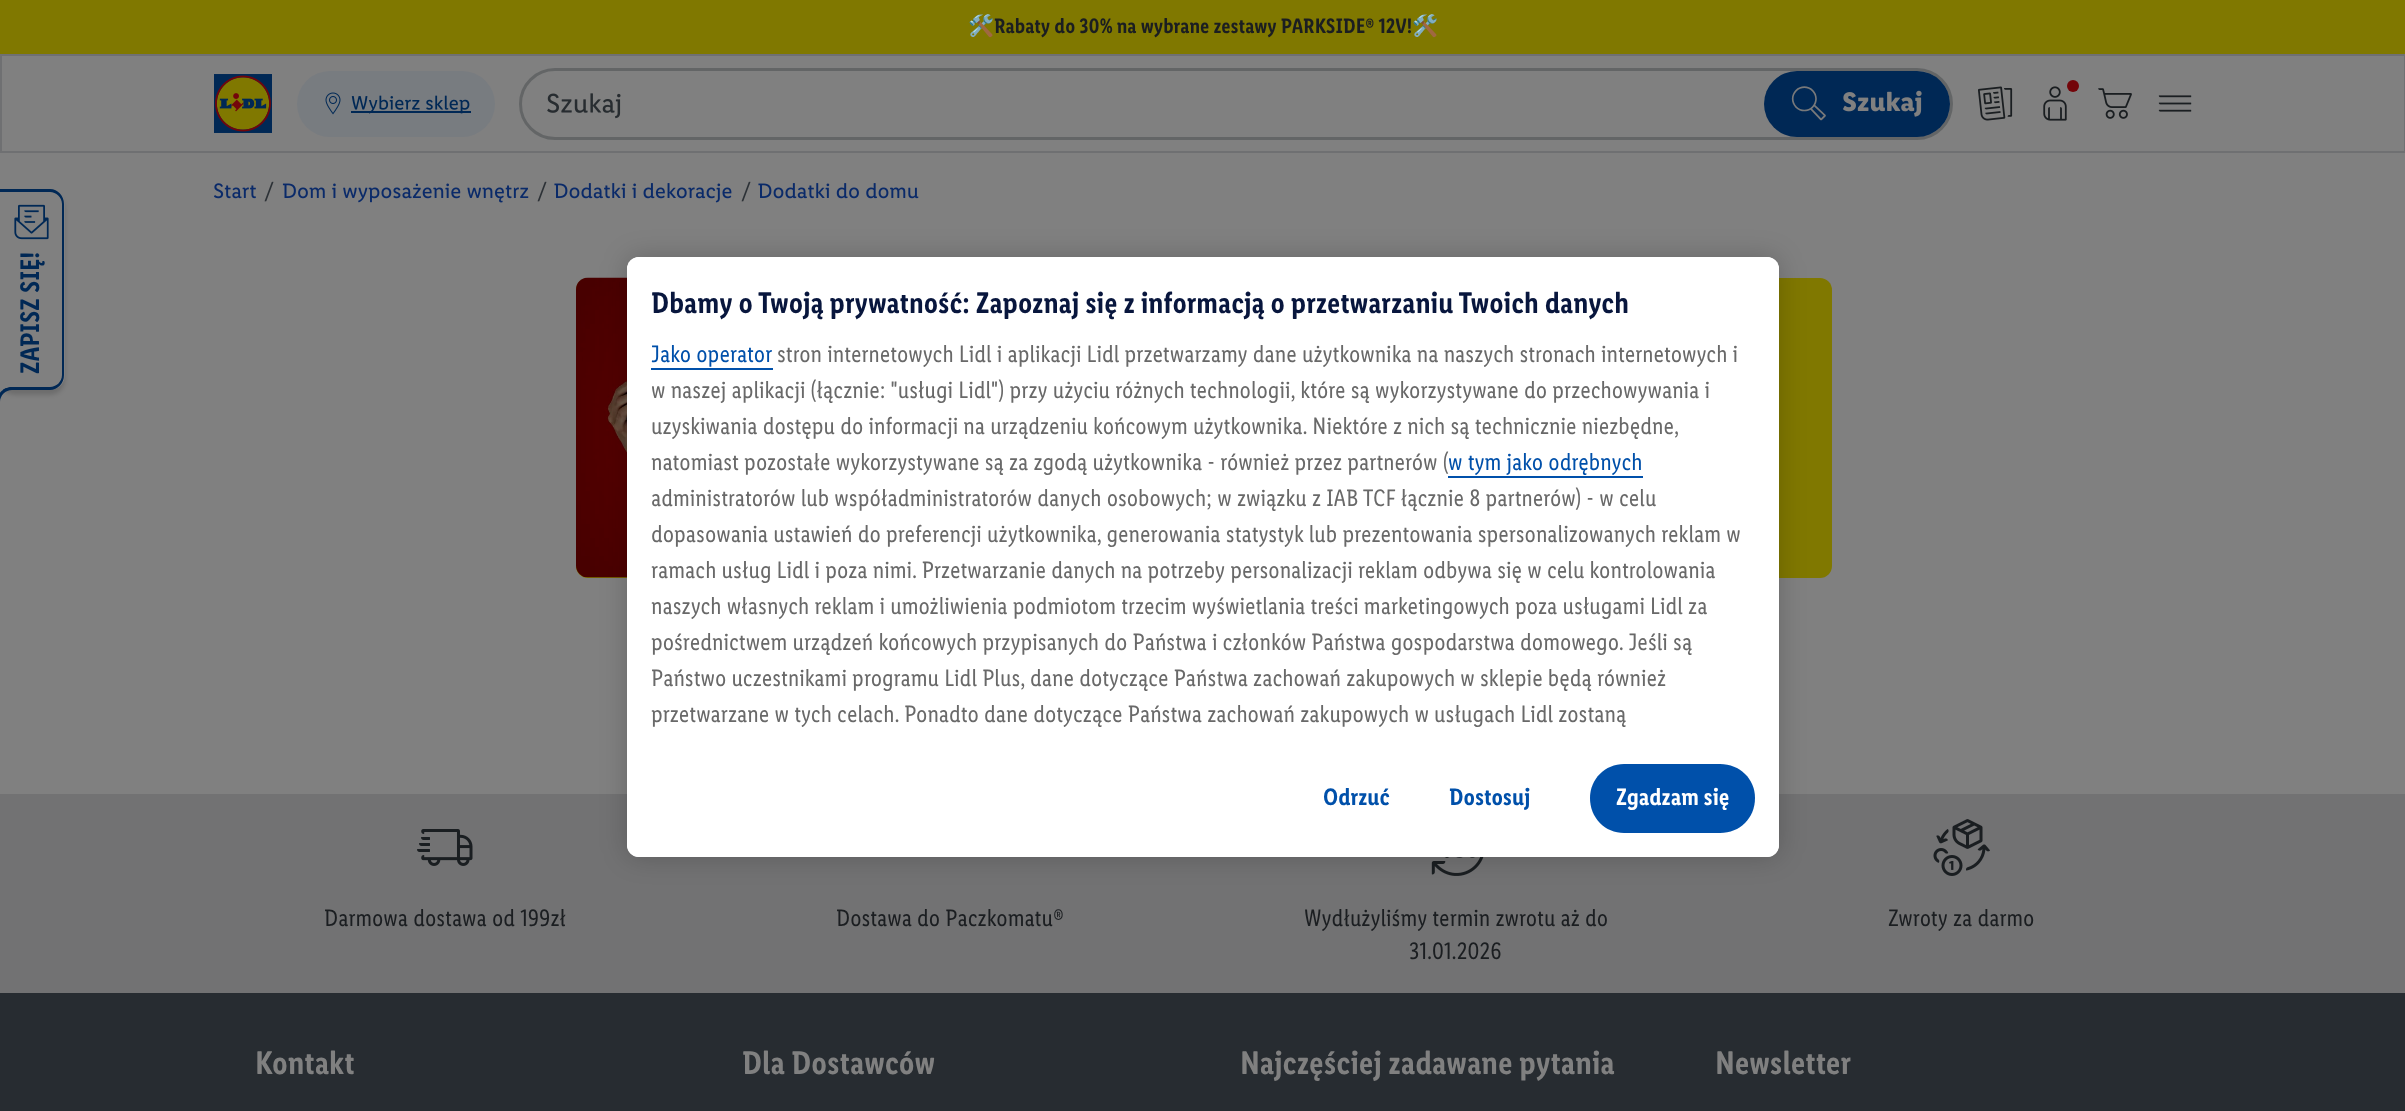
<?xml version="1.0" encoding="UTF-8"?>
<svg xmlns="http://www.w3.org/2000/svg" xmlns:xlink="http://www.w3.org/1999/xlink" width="2405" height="1111">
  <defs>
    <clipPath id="clip1"><path d="M 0 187 h 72 v 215 h -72 z m 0 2 h 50 c 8.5 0 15 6.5 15 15 v 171 c 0 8.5 -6.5 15 -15 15 h -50 z" clip-rule="evenodd" /></clipPath>
    <linearGradient id="g1" gradientUnits="userSpaceOnUse" x1="1203" y1="256" x2="1203" y2="317"><stop offset="0.3" stop-color="#ffffff" /><stop offset="1" stop-color="#ffffff" stop-opacity="0" /></linearGradient>
  </defs>
  <rect width="100%" height="100%" fill="#808080" />
  <rect width="2405" height="54" fill="#807800" />
  <rect x="1" y="55" width="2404" height="97" fill="none" stroke="#6f7072" stroke-width="2" />
  <image x="214" y="74" width="58" height="59" xlink:href="image1.png" />
  <rect x="297" y="71" width="198" height="66" rx="33" fill="#787c80" />
  <image x="325" y="92" width="16" height="23" xlink:href="image2.png" />
  <rect x="351" y="111" width="120" height="2" fill="#002855" />
  <image x="351" y="95" width="119" height="19" xlink:href="image3.png" />
  <rect x="520.5" y="69.5" width="1431" height="69" rx="34.5" fill="none" stroke="#636566" stroke-width="3" />
  <image x="547" y="93" width="74" height="26" xlink:href="image4.png" />
  <rect x="1764" y="71" width="186" height="66" rx="33" fill="#002855" />
  <image x="1791" y="86" width="35" height="35" xlink:href="image5.png" />
  <image x="1843" y="90" width="79" height="27" xlink:href="image6.png" />
  <image x="1978" y="86" width="35" height="35" xlink:href="image7.png" />
  <image x="2043" y="86" width="24" height="35" xlink:href="image8.png" />
  <circle cx="2073" cy="86" r="6" fill="#73050a" />
  <image x="2098" y="88" width="34" height="31" xlink:href="image9.png" />
  <image x="2158" y="95" width="34" height="17" xlink:href="image10.png" />
  <image x="214" y="183" width="42" height="16" xlink:href="image11.png" />
  <image x="264" y="181" width="10" height="21" xlink:href="image12.png" />
  <image x="282" y="183" width="247" height="20" xlink:href="image13.png" />
  <image x="537" y="181" width="10" height="21" xlink:href="image12.png" />
  <image x="554" y="183" width="178" height="20" xlink:href="image14.png" />
  <image x="741" y="181" width="10" height="21" xlink:href="image12.png" />
  <image x="758" y="183" width="161" height="16" xlink:href="image15.png" />
  <g clip-path="url(#clip1)">
    <rect y="194" width="65" height="201" rx="15" fill="#000000" fill-opacity="0.15" filter="blur(2px)" />
  </g>
  <path d="M 0 189 h 50 c 8 0 14 7 14 15 v 171 c 0 8 -6 15 -14 15 h -50 z m 0 3 h 50 c 6 0 12 5 12 12 v 171 c 0 7 -6 12 -12 12 h -50 z" fill="#002855" fill-rule="evenodd" />
  <image x="14" y="204" width="35" height="36" xlink:href="image16.png" />
  <path d="M 12 372 c -8.5 0 -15 6.5 -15 15 v 9 h 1 c 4.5 -10 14 -9 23 -9 v -15 z" fill="#808080" />
  <path d="M 12 387 h 9 v 24 h -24 v -9 c 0 -8.5 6.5 -15 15 -15 z m 0 3 h 9 v 21 h -21 v -9 c 0 -6.5 5.5 -12 12 -12 z" fill="#002855" fill-rule="evenodd" />
  <rect y="794" width="2405" height="199" fill="#727273" />
  <image x="417" y="829" width="56" height="37" xlink:href="image17.png" />
  <image x="1431" y="857" width="53" height="19" xlink:href="image18.png" />
  <image x="1933" y="819" width="57" height="57" xlink:href="image19.png" />
  <rect y="993" width="2405" height="118" fill="#272c31" />
  <rect x="576" y="278" width="1256" height="300" rx="12" fill="#807800" />
  <image x="576" y="277" width="51" height="301" xlink:href="image20.png" />
  <rect x="627" y="257" width="1152" height="600" rx="12" fill="#000000" fill-opacity="0.2" filter="blur(13.5px)" />
  <rect x="627" y="257" width="1152" height="600" rx="12" fill="#ffffff" />
  <path d="M 639 257 h 1128 c 6.5 0 12 5.5 12 12 v 48 h -1152 v -48 c 0 -6.5 5.5 -12 12 -12 z" fill="url(#g1)" />
  <rect x="651" y="368" width="122" height="2" fill="#0050aa" />
  <rect x="1448" y="476" width="195" height="2" fill="#0050aa" />
  <path d="M 627 740 h 1152 v 105 c 0 6.5 -5.5 12 -12 12 h -1128 c -6.5 0 -12 -5.5 -12 -12 z" fill="#ffffff" />
  <path d="M 1624 764 h 96 c 20 0 35 15 35 34 c 0 20 -15 35 -35 35 h -96 c -19 0 -34 -15 -34 -35 c 0 -19 15 -34 34 -34 z" fill="#0050aa" />
  <text x="968" y="33" style="font-family: Noto Color Emoji; font-size: 21px; font-weight: bold; fill: #1b1e21">🛠️</text>
  <text x="994" y="33" style="font-family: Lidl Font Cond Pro; font-size: 21px; font-weight: 600; fill: #1b1e21">Rabaty do 30% na wybrane zestawy PARKSIDE® 12V!</text>
  <text x="1412" y="33" style="font-family: Noto Color Emoji; font-size: 21px; font-weight: bold; fill: #1b1e21">🛠️</text>
  <text x="39" y="374" transform="rotate(-90 39 374)" style="font-family: Lidl Font Cond Pro; font-size: 27px; font-weight: 600; fill: #002855">ZAPISZ SIĘ!</text>
  <text x="324" y="926" style="font-family: Lidl Font Cond Pro; font-size: 24px; fill: #1b1e21">Darmowa dostawa od 199zł</text>
  <text x="836" y="926" style="font-family: Lidl Font Cond Pro; font-size: 24px; fill: #1b1e21">Dostawa do Paczkomatu®</text>
  <text x="1304" y="926" style="font-family: Lidl Font Cond Pro; font-size: 24px; fill: #1b1e21">Wydłużyliśmy termin zwrotu aż do</text>
  <text x="1409" y="959" style="font-family: Lidl Font Cond Pro; font-size: 24px; fill: #1b1e21">31.01.2026</text>
  <text x="1888" y="926" style="font-family: Lidl Font Cond Pro; font-size: 24px; fill: #1b1e21">Zwroty za darmo</text>
  <text x="255" y="1074" style="font-family: Lidl Font Cond Pro; font-size: 33px; font-weight: 600; fill: #808080">Kontakt</text>
  <text x="742" y="1074" style="font-family: Lidl Font Cond Pro; font-size: 33px; font-weight: 600; fill: #808080">Dla Dostawców</text>
  <text x="1240" y="1074" style="font-family: Lidl Font Cond Pro; font-size: 33px; font-weight: 600; fill: #808080">Najczęściej zadawane pytania</text>
  <text x="1715" y="1074" style="font-family: Lidl Font Cond Pro; font-size: 33px; font-weight: 600; fill: #808080">Newsletter</text>
  <text x="651" y="313" style="font-family: Lidl Font Cond Pro; font-size: 30px; font-weight: 600; fill: #08163d">Dbamy o Twoją prywatność: Zapoznaj się z informacją o przetwarzaniu Twoich danych</text>
  <text x="651" y="362" style="font-family: Lidl Font Cond Pro; font-size: 24px; fill: #0050aa">Jako operator</text>
  <text x="777" y="362" style="font-family: Lidl Font Cond Pro; font-size: 24px; fill: #696969">stron internetowych Lidl i aplikacji Lidl przetwarzamy dane użytkownika na naszych stronach internetowych i</text>
  <text x="651" y="398" style="font-family: Lidl Font Cond Pro; font-size: 24px; fill: #696969">w naszej aplikacji (łącznie: "usługi Lidl") przy użyciu różnych technologii, które są wykorzystywane do przechowywania i</text>
  <text x="651" y="434" style="font-family: Lidl Font Cond Pro; font-size: 24px; fill: #696969">uzyskiwania dostępu do informacji na urządzeniu końcowym użytkownika. Niektóre z nich są technicznie niezbędne,</text>
  <text x="651" y="470" style="font-family: Lidl Font Cond Pro; font-size: 24px; fill: #696969">natomiast pozostałe wykorzystywane są za zgodą użytkownika - również przez partnerów (</text>
  <text x="1448" y="470" style="font-family: Lidl Font Cond Pro; font-size: 24px; fill: #0050aa">w tym jako odrębnych</text>
  <text x="651" y="506" style="font-family: Lidl Font Cond Pro; font-size: 24px; fill: #696969">administratorów lub współadministratorów danych osobowych; w związku z IAB TCF łącznie 8 partnerów) - w celu</text>
  <text x="651" y="542" style="font-family: Lidl Font Cond Pro; font-size: 24px; fill: #696969">dopasowania ustawień do preferencji użytkownika, generowania statystyk lub prezentowania spersonalizowanych reklam w</text>
  <text x="651" y="578" style="font-family: Lidl Font Cond Pro; font-size: 24px; fill: #696969">ramach usług Lidl i poza nimi. Przetwarzanie danych na potrzeby personalizacji reklam odbywa się w celu kontrolowania</text>
  <text x="651" y="614" style="font-family: Lidl Font Cond Pro; font-size: 24px; fill: #696969">naszych własnych reklam i umożliwienia podmiotom trzecim wyświetlania treści marketingowych poza usługami Lidl za</text>
  <text x="651" y="650" style="font-family: Lidl Font Cond Pro; font-size: 24px; fill: #696969">pośrednictwem urządzeń końcowych przypisanych do Państwa i członków Państwa gospodarstwa domowego. Jeśli są</text>
  <text x="651" y="686" style="font-family: Lidl Font Cond Pro; font-size: 24px; fill: #696969">Państwo uczestnikami programu Lidl Plus, dane dotyczące Państwa zachowań zakupowych w sklepie będą również</text>
  <text x="651" y="722" style="font-family: Lidl Font Cond Pro; font-size: 24px; fill: #696969">przetwarzane w tych celach. Ponadto dane dotyczące Państwa zachowań zakupowych w usługach Lidl zostaną</text>
  <text x="1323" y="805" style="font-family: Lidl Font Cond Pro; font-size: 24px; font-weight: 600; fill: #0050aa">Odrzuć</text>
  <text x="1449" y="805" style="font-family: Lidl Font Cond Pro; font-size: 24px; font-weight: 600; fill: #0050aa">Dostosuj</text>
  <text x="1616" y="805" style="font-family: Lidl Font Cond Pro; font-size: 24px; font-weight: 600; fill: #ffffff">Zgadzam się</text>
</svg>
